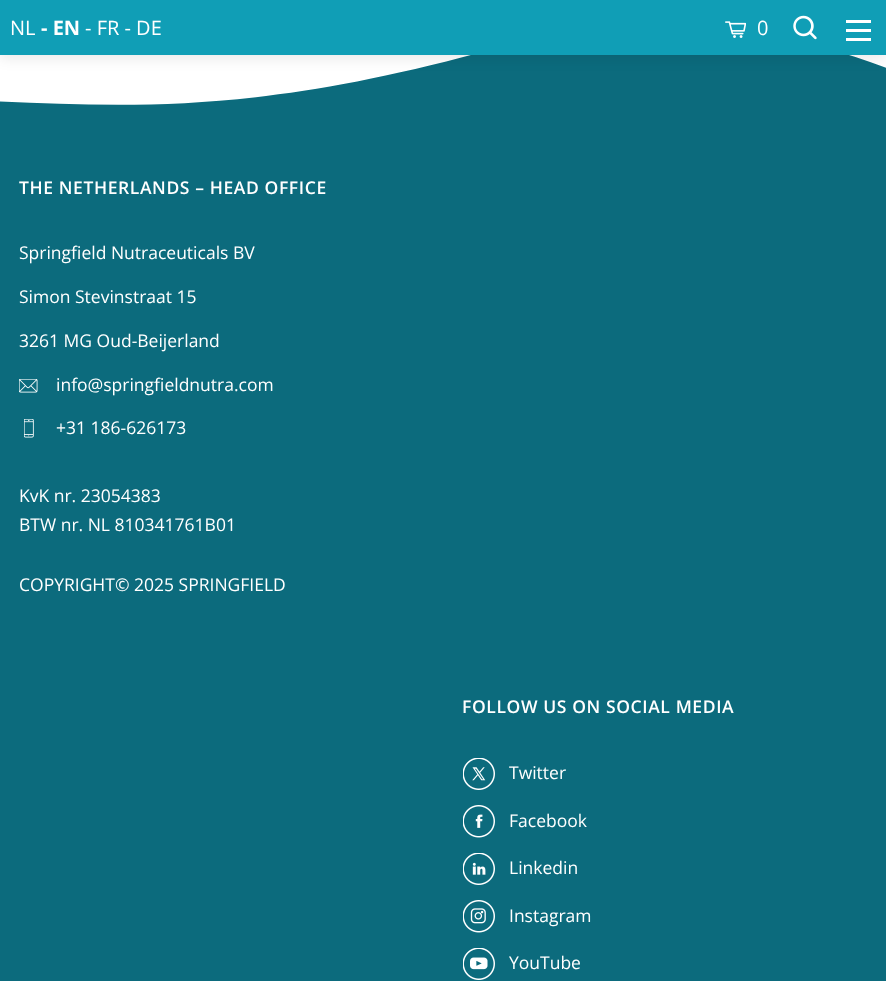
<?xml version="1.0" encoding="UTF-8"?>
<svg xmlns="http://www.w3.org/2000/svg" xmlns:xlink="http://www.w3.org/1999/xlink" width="886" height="981">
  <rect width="100%" height="100%" fill="#ffffff" />
  <image x="0" y="55" width="886" height="50" xlink:href="image3.png" />
  <rect y="3" width="886" height="55" fill="#000000" fill-opacity="0.09" filter="blur(7px)" />
  <rect width="886" height="55" fill="#109eb6" />
  <image x="725" y="21" width="21" height="17" xlink:href="image1.png" />
  <image x="793" y="15" width="24" height="25" xlink:href="image2.png" />
  <rect x="846" y="38" width="25" height="3" fill="#ffffff" />
  <rect x="846" y="29" width="25" height="3" fill="#ffffff" />
  <rect x="846" y="20" width="25" height="3" fill="#ffffff" />
  <rect y="105" width="886" height="876" fill="#0c6b7d" />
  <image x="19" y="379" width="19" height="14" xlink:href="image4.png" />
  <image x="24" y="419" width="10" height="19" xlink:href="image5.png" />
  <image x="463" y="758" width="32" height="32" xlink:href="image6.png" />
  <image x="463" y="805" width="32" height="33" xlink:href="image7.png" />
  <image x="463" y="853" width="32" height="32" xlink:href="image8.png" />
  <image x="463" y="900" width="32" height="33" xlink:href="image9.png" />
  <image x="463" y="948" width="32" height="32" xlink:href="image10.png" />
  <text x="10" y="35" style="font-family: Open Sans; font-size: 20px; fill: #ffffff">NL</text>
  <text x="41" y="35" style="font-family: Open Sans; font-size: 20px; font-weight: bold; fill: #ffffff">- EN</text>
  <text x="85" y="35" style="font-family: Open Sans; font-size: 20px; fill: #ffffff">- FR - DE</text>
  <text x="757" y="35" style="font-family: Open Sans; font-size: 20px; fill: #ffffff">0</text>
  <text x="19" y="194" style="font-family: Open Sans; font-size: 17.5px; font-weight: 600; letter-spacing: 0.6px; fill: #ffffff">THE NETHERLANDS – HEAD OFFICE</text>
  <text x="19" y="259" style="font-family: Open Sans; font-size: 17.5px; fill: #ffffff">Springfield Nutraceuticals BV</text>
  <text x="19" y="303" style="font-family: Open Sans; font-size: 17.5px; fill: #ffffff">Simon Stevinstraat 15</text>
  <text x="19" y="347" style="font-family: Open Sans; font-size: 17.5px; fill: #ffffff">3261 MG Oud-Beijerland</text>
  <text x="56" y="391" style="font-family: Open Sans; font-size: 17.5px; fill: #ffffff">info@springfieldnutra.com</text>
  <text x="56" y="434" style="font-family: Open Sans; font-size: 17.5px; fill: #ffffff">+31 186-626173</text>
  <text x="19" y="502" style="font-family: Open Sans; font-size: 17.5px; fill: #ffffff">KvK nr. 23054383</text>
  <text x="19" y="531" style="font-family: Open Sans; font-size: 17.5px; fill: #ffffff">BTW nr. NL 810341761B01</text>
  <text x="19" y="591" style="font-family: Open Sans; font-size: 17.5px; fill: #ffffff">COPYRIGHT© 2025 SPRINGFIELD</text>
  <text x="462" y="713" style="font-family: Open Sans; font-size: 17.5px; font-weight: 600; letter-spacing: 0.6px; fill: #ffffff">FOLLOW US ON SOCIAL MEDIA</text>
  <text x="509" y="779" style="font-family: Open Sans; font-size: 17.5px; fill: #ffffff">Twitter</text>
  <text x="509" y="827" style="font-family: Open Sans; font-size: 17.5px; fill: #ffffff">Facebook</text>
  <text x="509" y="874" style="font-family: Open Sans; font-size: 17.5px; fill: #ffffff">Linkedin</text>
  <text x="509" y="922" style="font-family: Open Sans; font-size: 17.5px; fill: #ffffff">Instagram</text>
  <text x="509" y="969" style="font-family: Open Sans; font-size: 17.5px; fill: #ffffff">YouTube</text>
</svg>
